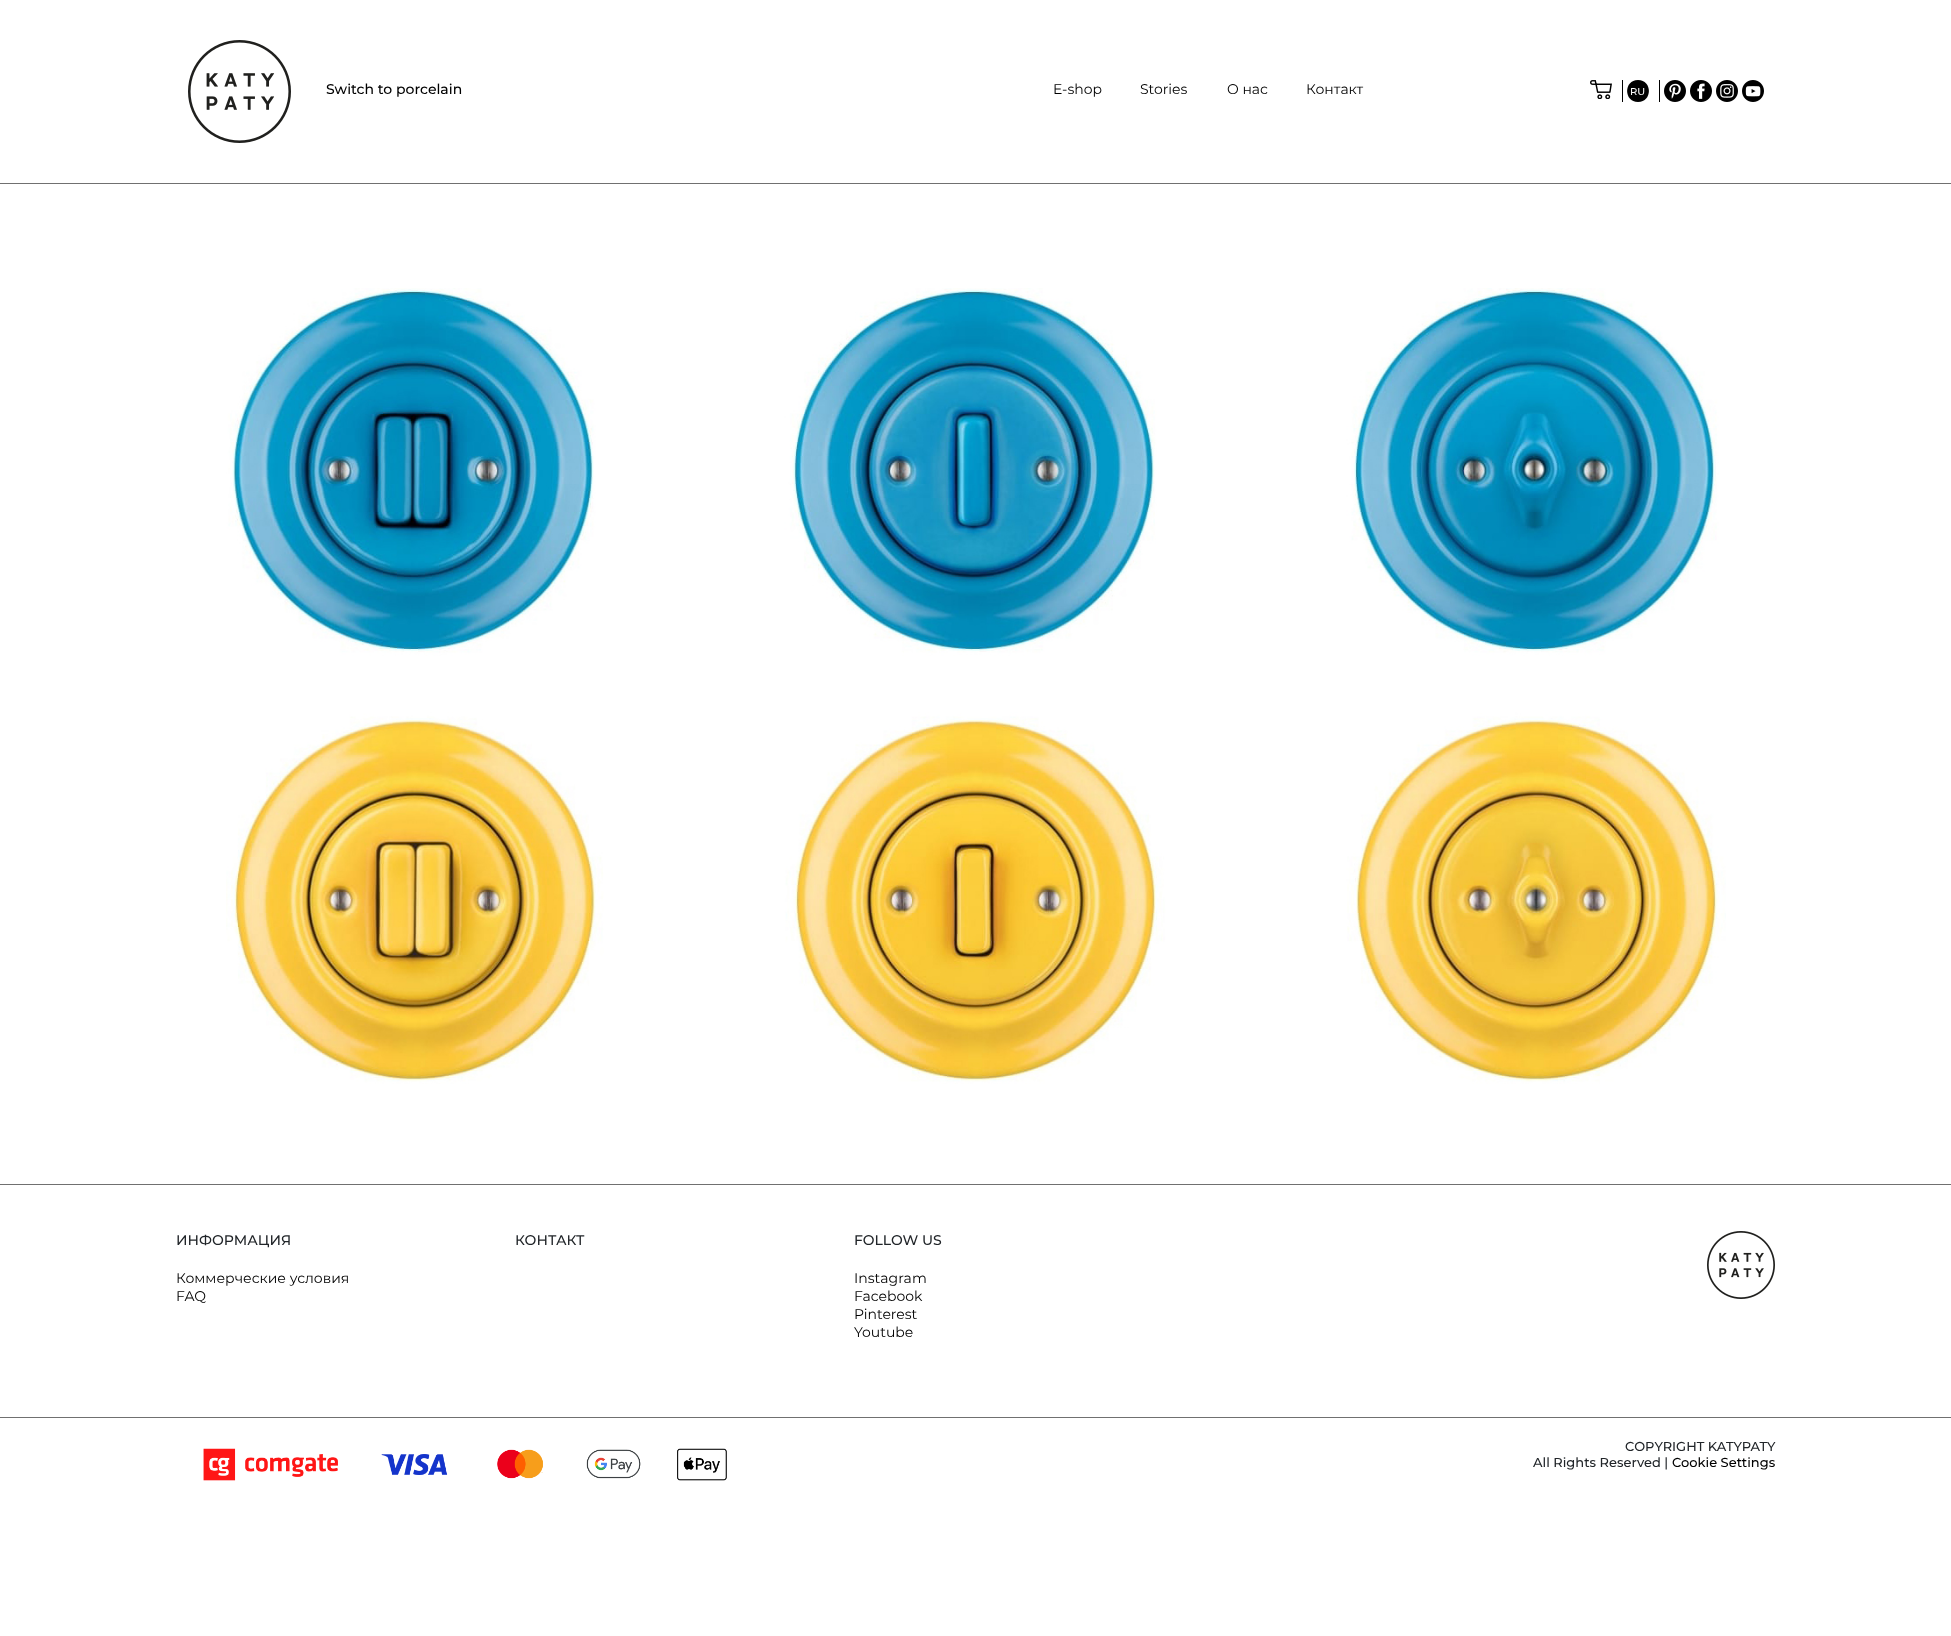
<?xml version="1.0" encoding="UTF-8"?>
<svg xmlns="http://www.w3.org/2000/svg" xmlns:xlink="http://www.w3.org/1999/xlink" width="1951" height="1636">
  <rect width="100%" height="100%" fill="#ffffff" />
  <rect y="183" width="1951" height="1" fill="#707070" />
  <image x="188" y="40" width="103" height="103" xlink:href="image1.png" />
  <image x="1590" y="80" width="22" height="19" xlink:href="image2.png" />
  <rect x="1622" y="80" width="1" height="22" fill="#000000" />
  <path d="M 1638 80 c -14.5 0 -14.5 22 0 22 c 14.5 0 14.5 -22 0 -22 z" fill="#000000" />
  <rect x="1659" y="80" width="1" height="22" fill="#000000" />
  <image x="1664" y="80" width="22" height="22" xlink:href="image3.png" />
  <image x="1690" y="80" width="22" height="22" xlink:href="image4.png" />
  <image x="1716" y="80" width="22" height="22" xlink:href="image5.png" />
  <image x="1742" y="80" width="22" height="22" xlink:href="image6.png" />
  <image x="226" y="288" width="1500" height="796" xlink:href="image7.png" />
  <rect y="1184" width="1951" height="1" fill="#707070" />
  <image x="1707" y="1231" width="68" height="68" xlink:href="image8.png" />
  <rect y="1417" width="1951" height="1" fill="#707070" />
  <image x="203" y="1448" width="524" height="33" xlink:href="image9.png" />
  <text x="326" y="94" style="font-family: Montserrat; font-size: 14px; font-weight: 500; fill: #000000">Switch to porcelain</text>
  <text x="1053" y="94" style="font-family: Montserrat; font-size: 14px; fill: #000000">E-shop</text>
  <text x="1140" y="94" style="font-family: Montserrat; font-size: 14px; fill: #000000">Stories</text>
  <text x="1227" y="94" style="font-family: Montserrat; font-size: 14px; fill: #000000">O нас</text>
  <text x="1306" y="94" style="font-family: Montserrat; font-size: 14px; fill: #000000">Контакт</text>
  <text x="1630" y="95" style="font-family: Montserrat; font-size: 10px; font-weight: 500; fill: #ffffff">RU</text>
  <text x="176" y="1245" style="font-family: Montserrat; font-size: 14px; font-weight: 500; fill: #212529">ИНФОРМАЦИЯ</text>
  <text x="176" y="1283" style="font-family: Montserrat; font-size: 14px; fill: #000000">Коммерческие условия</text>
  <text x="176" y="1301" style="font-family: Montserrat; font-size: 14px; fill: #000000">FAQ</text>
  <text x="515" y="1245" style="font-family: Montserrat; font-size: 14px; font-weight: 500; fill: #212529">КОНТАКТ</text>
  <text x="854" y="1245" style="font-family: Montserrat; font-size: 14px; font-weight: 500; fill: #212529">FOLLOW US</text>
  <text x="854" y="1283" style="font-family: Montserrat; font-size: 14px; fill: #000000">Instagram</text>
  <text x="854" y="1301" style="font-family: Montserrat; font-size: 14px; fill: #000000">Facebook</text>
  <text x="854" y="1319" style="font-family: Montserrat; font-size: 14px; fill: #000000">Pinterest</text>
  <text x="854" y="1337" style="font-family: Montserrat; font-size: 14px; fill: #000000">Youtube</text>
  <text x="1625" y="1451" style="font-family: Montserrat; font-size: 13px; font-weight: 500; fill: #212529">COPYRIGHT KATYPATY</text>
  <text x="1533" y="1467" style="font-family: Montserrat; font-size: 13px; font-weight: 500; fill: #212529">All Rights Reserved |</text>
  <text x="1672" y="1467" style="font-family: Montserrat; font-size: 13px; font-weight: 500; fill: #000000">Cookie Settings</text>
</svg>
